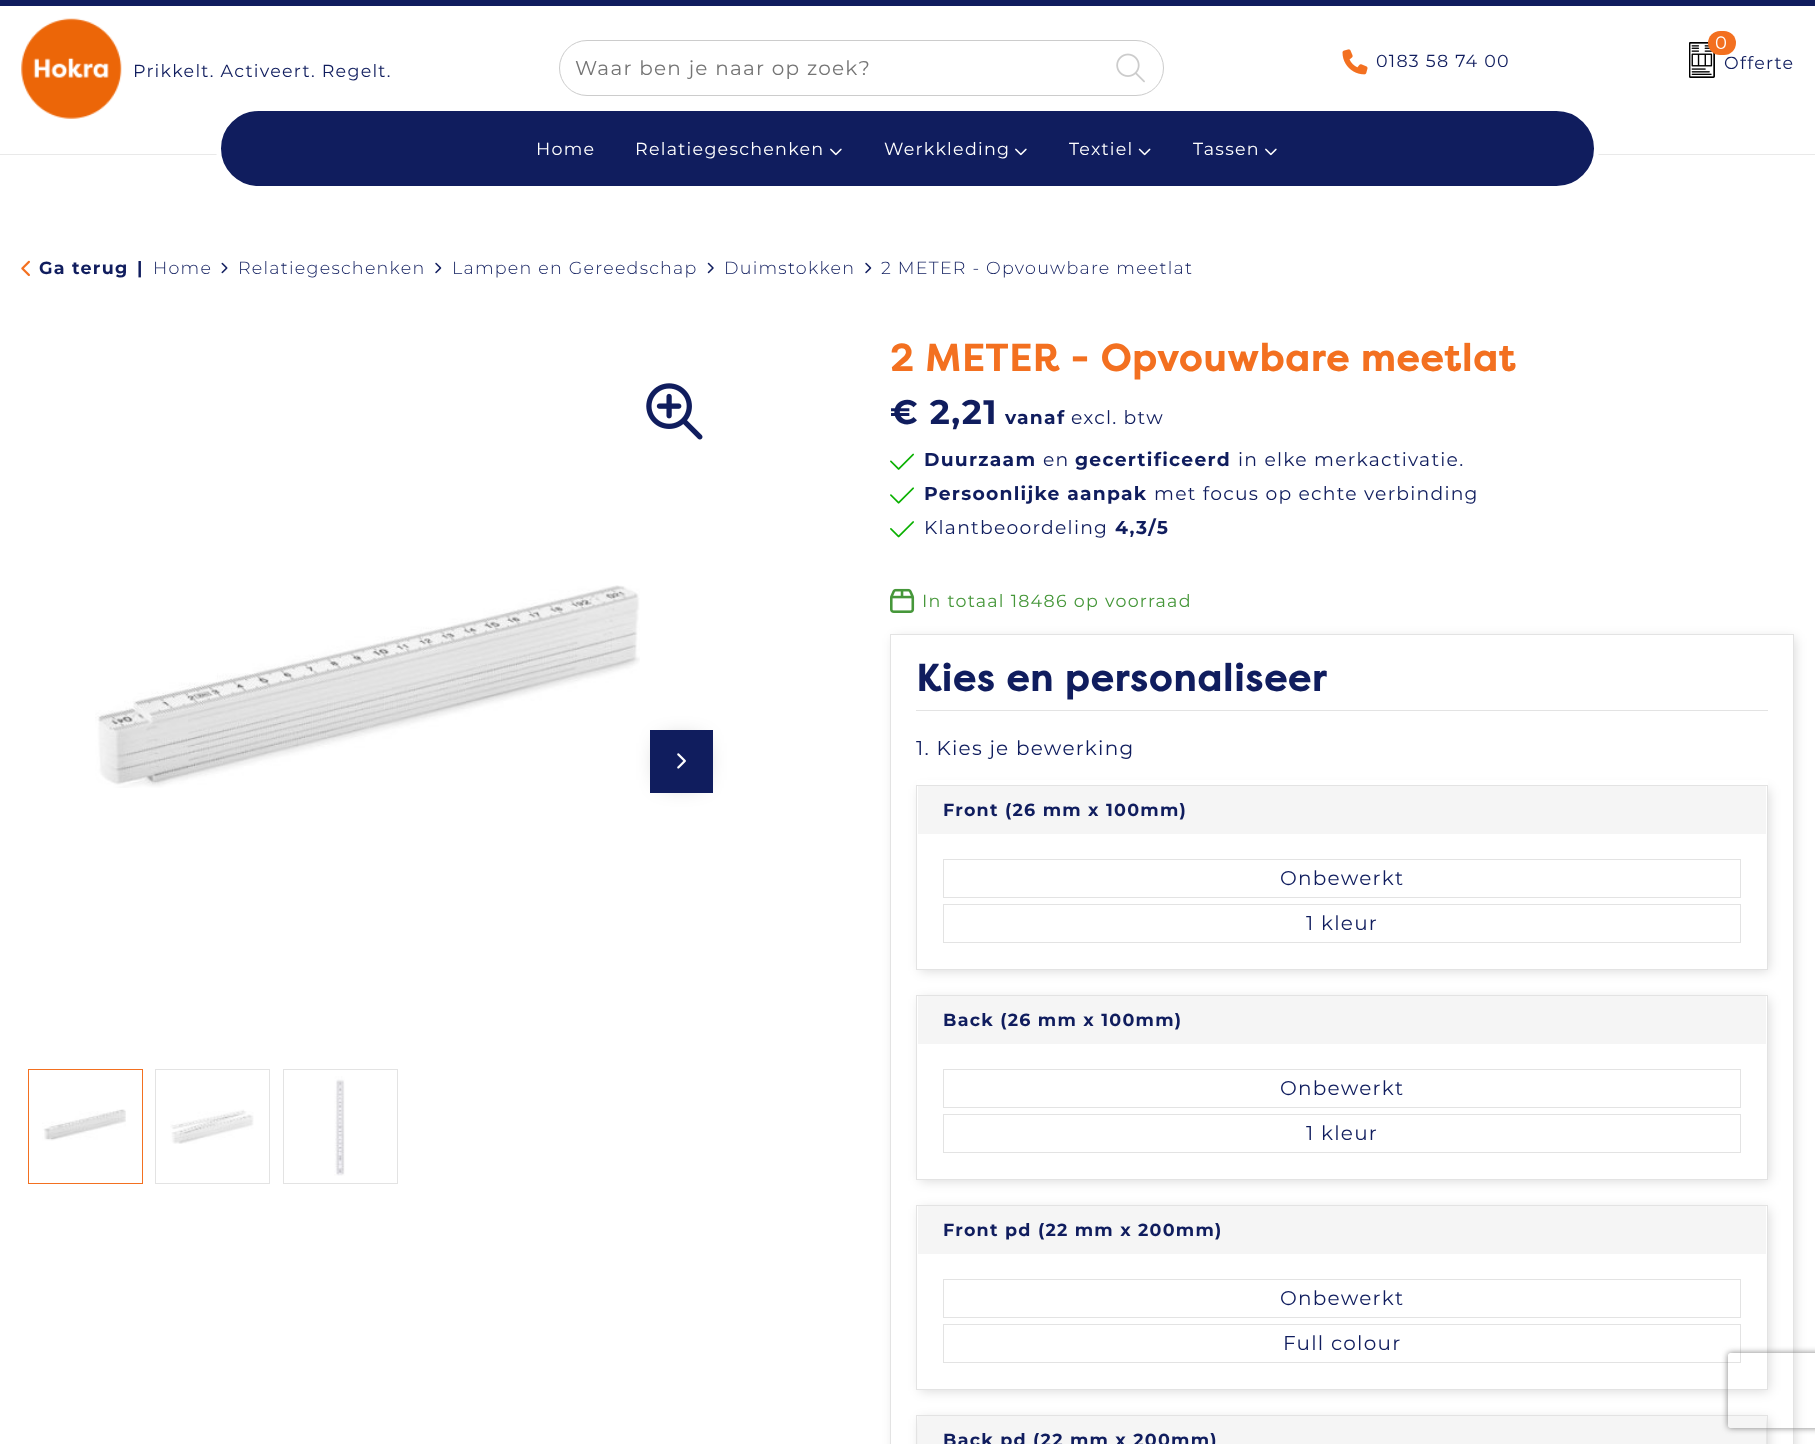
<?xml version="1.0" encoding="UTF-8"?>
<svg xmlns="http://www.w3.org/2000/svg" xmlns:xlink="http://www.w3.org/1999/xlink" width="1815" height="1444">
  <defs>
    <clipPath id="clip1"><path d="M 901 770 h 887 v 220 h -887 z m 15 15 h 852 v 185 h -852 z" clip-rule="evenodd" /></clipPath>
    <clipPath id="clip2"><path d="M 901 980 h 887 v 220 h -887 z m 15 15 h 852 v 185 h -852 z" clip-rule="evenodd" /></clipPath>
    <clipPath id="clip3"><path d="M 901 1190 h 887 v 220 h -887 z m 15 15 h 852 v 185 h -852 z" clip-rule="evenodd" /></clipPath>
    <clipPath id="clip4"><path d="M 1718 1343 h 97 v 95 h -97 z m 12.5 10 h 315 c 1.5 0 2.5 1 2.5 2.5 v 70 c 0 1.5 -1 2.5 -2.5 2.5 h -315 c -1.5 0 -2.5 -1 -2.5 -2.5 v -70 c 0 -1.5 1 -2.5 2.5 -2.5 z" clip-rule="evenodd" /></clipPath>
  </defs>
  <rect width="100%" height="100%" fill="#ffffff" />
  <rect width="1815" height="6" fill="#101d5e" />
  <image x="21" y="18" width="101" height="101" xlink:href="image1.png" />
  <rect x="559.5" y="40.5" width="604" height="55" rx="27.5" fill="none" stroke="#cccccc" />
  <image x="1116" y="53" width="29" height="30" xlink:href="image2.png" />
  <image x="1342" y="49" width="26" height="26" xlink:href="image3.png" />
  <image x="1689" y="42" width="26" height="36" xlink:href="image4.png" />
  <rect x="1708" y="31" width="28" height="24" rx="12" fill="#f37020" />
  <rect y="154" width="1815" height="1" fill="#e9e9e9" />
  <rect x="218.5" y="108.5" width="1378" height="80" rx="40" fill="#101d5e" stroke="#ffffff" stroke-width="5" />
  <image x="830" y="148" width="12" height="8" xlink:href="image5.png" />
  <image x="1015" y="148" width="12" height="8" xlink:href="image5.png" />
  <image x="1138" y="148" width="13" height="8" xlink:href="image6.png" />
  <image x="1265" y="148" width="12" height="8" xlink:href="image5.png" />
  <image x="21" y="260" width="9" height="17" xlink:href="image7.png" />
  <image x="221" y="262" width="7" height="12" xlink:href="image8.png" />
  <image x="435" y="262" width="7" height="12" xlink:href="image9.png" />
  <image x="707" y="262" width="7" height="12" xlink:href="image10.png" />
  <image x="865" y="262" width="7" height="12" xlink:href="image9.png" />
  <image x="646" y="383" width="57" height="57" xlink:href="image11.png" />
  <image x="95" y="585" width="545" height="203" xlink:href="image12.png" />
  <rect x="663" y="743" width="37" height="37" fill="#000000" fill-opacity="0.4" filter="blur(12.5px)" />
  <rect x="650" y="730" width="63" height="63" fill="#101d5e" />
  <image x="677" y="753" width="9" height="16" xlink:href="image13.png" />
  <rect x="28.5" y="1069.5" width="114" height="114" fill="none" stroke="#f37020" />
  <image x="42" y="1109" width="84" height="32" xlink:href="image14.png" />
  <rect x="155.5" y="1069.5" width="114" height="114" fill="none" stroke="#e3e3e3" />
  <image x="170" y="1109" width="84" height="35" xlink:href="image15.png" />
  <rect x="283.5" y="1069.5" width="114" height="114" fill="none" stroke="#e3e3e3" />
  <image x="334" y="1076" width="11" height="100" xlink:href="image16.png" />
  <image x="890" y="453" width="24" height="17" xlink:href="image17.png" />
  <image x="890" y="487" width="24" height="17" xlink:href="image18.png" />
  <image x="890" y="521" width="24" height="17" xlink:href="image19.png" />
  <image x="890" y="588" width="25" height="25" xlink:href="image20.png" />
  <rect x="894" y="638" width="901" height="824" fill="#000000" fill-opacity="0.15" filter="blur(6px)" />
  <rect x="890.5" y="634.5" width="903" height="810" fill="#ffffff" stroke="#e3e3e3" />
  <rect x="916" y="710" width="852" height="1" fill="#e3e3e3" />
  <g clip-path="url(#clip1)">
    <rect x="920" y="789" width="849" height="182" fill="#000000" fill-opacity="0.15" filter="blur(6px)" />
  </g>
  <rect x="917" y="780" width="851" height="5" fill="#ffffff" />
  <rect x="916.5" y="785.5" width="851" height="184" fill="none" stroke="#e3e3e3" />
  <rect x="918" y="786" width="848" height="48" fill="#f5f5f5" />
  <rect x="943.5" y="859.5" width="797" height="38" fill="none" stroke="#e3e3e3" />
  <rect x="943.5" y="904.5" width="797" height="38" fill="none" stroke="#e3e3e3" />
  <g clip-path="url(#clip2)">
    <rect x="920" y="999" width="849" height="182" fill="#000000" fill-opacity="0.15" filter="blur(6px)" />
  </g>
  <rect x="916.5" y="995.5" width="851" height="184" fill="none" stroke="#e3e3e3" />
  <rect x="918" y="996" width="848" height="48" fill="#f5f5f5" />
  <rect x="943.5" y="1069.5" width="797" height="38" fill="none" stroke="#e3e3e3" />
  <rect x="943.5" y="1114.5" width="797" height="38" fill="none" stroke="#e3e3e3" />
  <g clip-path="url(#clip3)">
    <rect x="920" y="1209" width="849" height="182" fill="#000000" fill-opacity="0.15" filter="blur(6px)" />
  </g>
  <rect x="916.5" y="1205.5" width="851" height="184" fill="none" stroke="#e3e3e3" />
  <rect x="918" y="1206" width="848" height="48" fill="#f5f5f5" />
  <rect x="943.5" y="1279.5" width="797" height="38" fill="none" stroke="#e3e3e3" />
  <rect x="943.5" y="1324.5" width="797" height="38" fill="none" stroke="#e3e3e3" />
  <rect x="920" y="1419" width="849" height="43" fill="#000000" fill-opacity="0.15" filter="blur(6px)" />
  <rect x="916.5" y="1415.5" width="851" height="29" fill="none" stroke="#e3e3e3" />
  <rect x="918" y="1416" width="848" height="28" fill="#f5f5f5" />
  <g clip-path="url(#clip4)">
    <rect x="1728" y="1353" width="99" height="75" rx="2.5" fill="#808080" filter="blur(3px)" />
  </g>
  <text x="133" y="77" style="font-family: Montserrat; font-size: 17.5px; letter-spacing: 1.25px; fill: #101d5e">Prikkelt. Activeert. Regelt.</text>
  <text x="575" y="75" style="font-family: Montserrat; font-size: 20px; letter-spacing: 1.25px; fill: #757575">Waar ben je naar op zoek?</text>
  <text x="1376" y="67" style="font-family: Montserrat; font-size: 17.5px; letter-spacing: 1.25px; fill: #101d5e">0183 58 74 00</text>
  <text x="1715" y="49" style="font-family: Montserrat; font-size: 18px; letter-spacing: 1.25px; fill: #ffffff">0</text>
  <text x="1724" y="69" style="font-family: Montserrat; font-size: 17.5px; letter-spacing: 1.25px; fill: #101d5e">Offerte</text>
  <text x="536" y="155" style="font-family: Montserrat; font-size: 17.5px; letter-spacing: 1.25px; fill: #ffffff">Home</text>
  <text x="635" y="155" style="font-family: Montserrat; font-size: 17.5px; letter-spacing: 1.25px; fill: #ffffff">Relatiegeschenken</text>
  <text x="884" y="155" style="font-family: Montserrat; font-size: 17.5px; letter-spacing: 1.25px; fill: #ffffff">Werkkleding</text>
  <text x="1069" y="155" style="font-family: Montserrat; font-size: 17.5px; letter-spacing: 1.25px; fill: #ffffff">Textiel</text>
  <text x="1193" y="155" style="font-family: Montserrat; font-size: 17.5px; letter-spacing: 1.25px; fill: #ffffff">Tassen</text>
  <text x="39" y="274" style="font-family: Montserrat; font-size: 17.5px; font-weight: bold; letter-spacing: 1.25px; fill: #101d5e">Ga terug</text>
  <text x="137" y="274" style="font-family: Montserrat; font-size: 17.5px; font-weight: bold; letter-spacing: 1.25px; fill: #101d5e">|</text>
  <text x="153" y="274" style="font-family: Montserrat; font-size: 17.5px; font-weight: 300; letter-spacing: 1.25px; fill: #101d5e">Home</text>
  <text x="238" y="274" style="font-family: Montserrat; font-size: 17.5px; font-weight: 300; letter-spacing: 1.25px; fill: #101d5e">Relatiegeschenken</text>
  <text x="452" y="274" style="font-family: Montserrat; font-size: 17.5px; font-weight: 300; letter-spacing: 1.25px; fill: #101d5e">Lampen en Gereedschap</text>
  <text x="724" y="274" style="font-family: Montserrat; font-size: 17.5px; font-weight: 300; letter-spacing: 1.25px; fill: #101d5e">Duimstokken</text>
  <text x="881" y="274" style="font-family: Montserrat; font-size: 17.5px; font-weight: 300; letter-spacing: 1.25px; fill: #101d5e">2 METER - Opvouwbare meetlat</text>
  <text x="890" y="371" style="font-family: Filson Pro; font-size: 37.5px; font-weight: bold; letter-spacing: 1.25px; fill: #f37020">2 METER - Opvouwbare meetlat</text>
  <text x="890" y="424" style="font-family: Montserrat; font-size: 34px; font-weight: bold; letter-spacing: 1.25px; fill: #101d5e">€ 2,21</text>
  <text x="1005" y="424" style="font-family: Montserrat; font-size: 18.75px; font-weight: bold; letter-spacing: 1.25px; fill: #101d5e">vanaf</text>
  <text x="1071" y="424" style="font-family: Montserrat; font-size: 18.75px; letter-spacing: 1.25px; fill: #101d5e">excl. btw</text>
  <text x="924" y="466" style="font-family: Montserrat; font-size: 18.75px; font-weight: bold; letter-spacing: 1.25px; fill: #101d5e">Duurzaam</text>
  <text x="1043" y="466" style="font-family: Montserrat; font-size: 18.75px; letter-spacing: 1.25px; fill: #101d5e">en</text>
  <text x="1075" y="466" style="font-family: Montserrat; font-size: 18.75px; font-weight: bold; letter-spacing: 1.25px; fill: #101d5e">gecertificeerd</text>
  <text x="1238" y="466" style="font-family: Montserrat; font-size: 18.75px; letter-spacing: 1.25px; fill: #101d5e">in elke merkactivatie.</text>
  <text x="924" y="500" style="font-family: Montserrat; font-size: 18.75px; font-weight: bold; letter-spacing: 1.25px; fill: #101d5e">Persoonlijke aanpak</text>
  <text x="1154" y="500" style="font-family: Montserrat; font-size: 18.75px; letter-spacing: 1.25px; fill: #101d5e">met focus op echte verbinding</text>
  <text x="924" y="534" style="font-family: Montserrat; font-size: 18.75px; letter-spacing: 1.25px; fill: #101d5e">Klantbeoordeling</text>
  <text x="1115" y="534" style="font-family: Montserrat; font-size: 18.75px; font-weight: bold; letter-spacing: 1.25px; fill: #101d5e">4,3/5</text>
  <text x="922" y="607" style="font-family: Montserrat; font-size: 17.5px; letter-spacing: 1.25px; fill: #46973a">In totaal 18486 op voorraad</text>
  <text x="916" y="691" style="font-family: Filson Pro; font-size: 37.5px; font-weight: bold; letter-spacing: 1.25px; fill: #101d5e">Kies en personaliseer</text>
  <text x="916" y="755" style="font-family: Montserrat; font-size: 20px; letter-spacing: 1.25px; fill: #101d5e">1. Kies je bewerking</text>
  <text x="943" y="816" style="font-family: Montserrat; font-size: 17.5px; font-weight: bold; letter-spacing: 1.25px; fill: #101d5e">Front (26 mm x 100mm)</text>
  <text x="1280" y="885" style="font-family: Montserrat; font-size: 20px; letter-spacing: 1.25px; fill: #101d5e">Onbewerkt</text>
  <text x="1306" y="930" style="font-family: Montserrat; font-size: 20px; letter-spacing: 1.25px; fill: #101d5e">1 kleur</text>
  <text x="943" y="1026" style="font-family: Montserrat; font-size: 17.5px; font-weight: bold; letter-spacing: 1.25px; fill: #101d5e">Back (26 mm x 100mm)</text>
  <text x="1280" y="1095" style="font-family: Montserrat; font-size: 20px; letter-spacing: 1.25px; fill: #101d5e">Onbewerkt</text>
  <text x="1306" y="1140" style="font-family: Montserrat; font-size: 20px; letter-spacing: 1.25px; fill: #101d5e">1 kleur</text>
  <text x="943" y="1236" style="font-family: Montserrat; font-size: 17.5px; font-weight: bold; letter-spacing: 1.25px; fill: #101d5e">Front pd (22 mm x 200mm)</text>
  <text x="1280" y="1305" style="font-family: Montserrat; font-size: 20px; letter-spacing: 1.25px; fill: #101d5e">Onbewerkt</text>
  <text x="1283" y="1350" style="font-family: Montserrat; font-size: 20px; letter-spacing: 1.25px; fill: #101d5e">Full colour</text>
  <text x="943" y="1446" style="font-family: Montserrat; font-size: 17.5px; font-weight: bold; letter-spacing: 1.25px; fill: #101d5e">Back pd (22 mm x 200mm)</text>
</svg>
